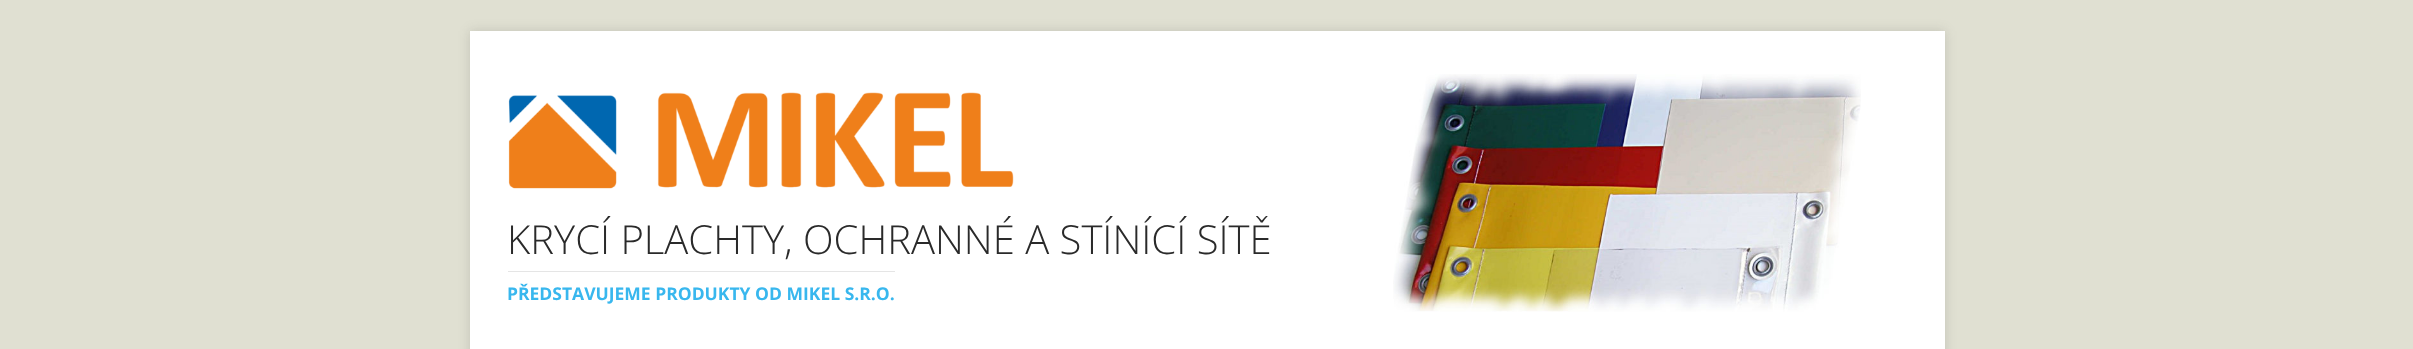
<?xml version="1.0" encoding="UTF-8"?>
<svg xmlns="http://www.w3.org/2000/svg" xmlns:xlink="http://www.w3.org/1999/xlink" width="2413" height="349">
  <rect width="100%" height="100%" fill="#e0e0d2" />
  <rect x="470" y="31" width="1475" height="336" fill="#323232" fill-opacity="0.17" filter="blur(6px)" />
  <rect x="470" y="31" width="1475" height="318" fill="#ffffff" />
  <image x="508" y="92" width="506" height="97" xlink:href="image1.png" />
  <rect x="508" y="271" width="387" height="1" fill="#e5e5e5" />
  <image x="1393" y="74" width="468" height="238" xlink:href="image2.png" />
  <text x="507" y="254" style="font-family: Open Sans; font-size: 40px; font-weight: 300; fill: #2a2a2a">KRYCÍ PLACHTY, OCHRANNÉ A STÍNÍCÍ SÍTĚ</text>
  <text x="507" y="300" style="font-family: Open Sans; font-size: 17.5px; font-weight: bold; fill: #38b7ee">PŘEDSTAVUJEME PRODUKTY OD MIKEL S.R.O.</text>
</svg>
